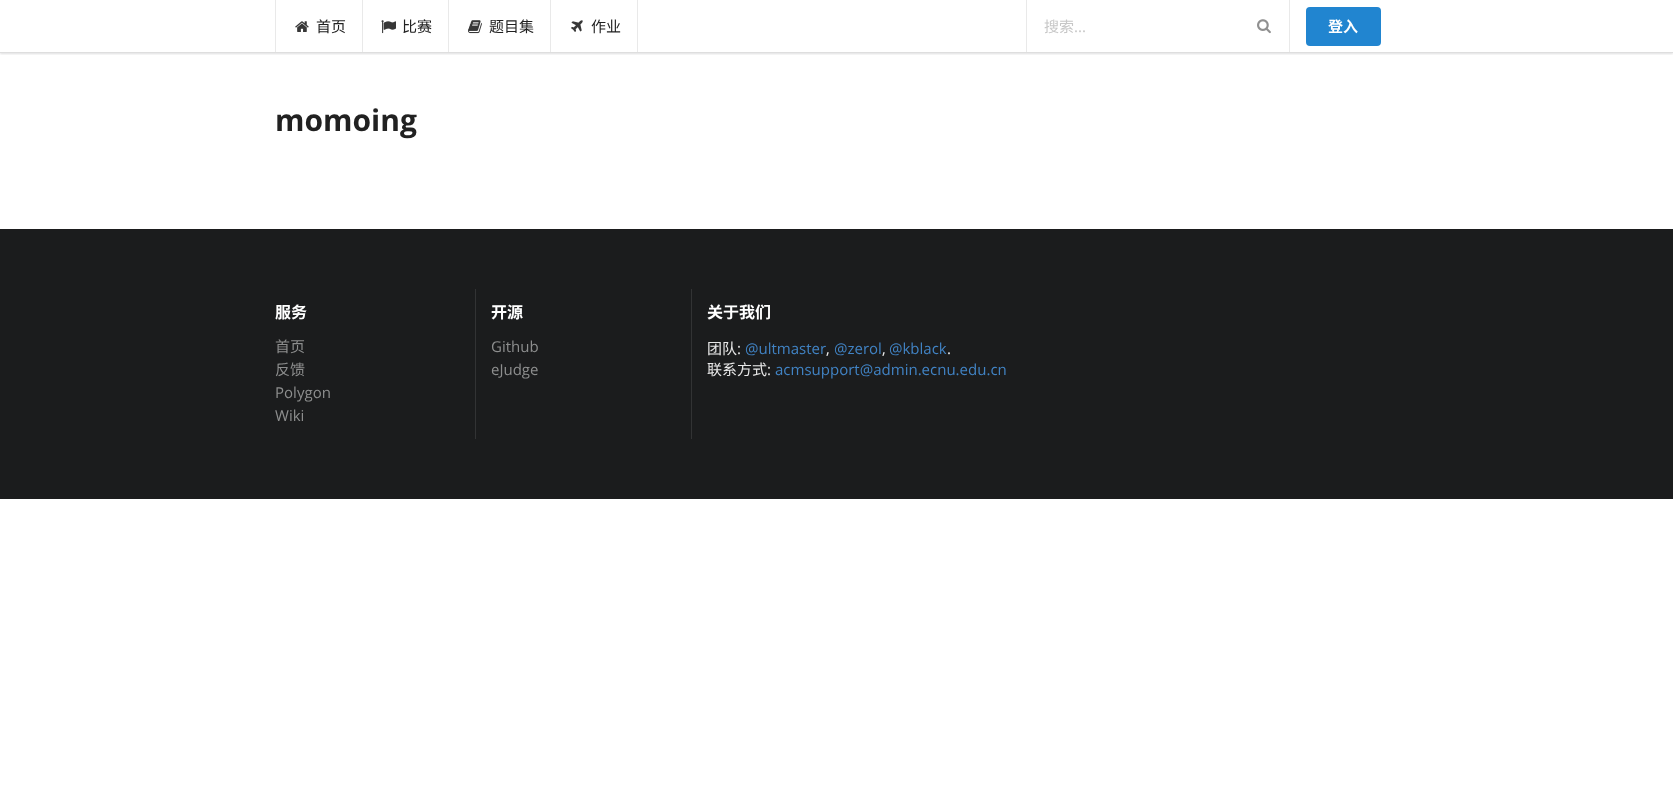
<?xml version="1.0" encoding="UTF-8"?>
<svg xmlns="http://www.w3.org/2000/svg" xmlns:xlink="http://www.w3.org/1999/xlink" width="1673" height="786">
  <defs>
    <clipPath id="clip1"><rect x="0" y="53" width="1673" height="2" /></clipPath>
  </defs>
  <rect width="100%" height="100%" fill="#ffffff" />
  <g clip-path="url(#clip1)">
    <rect y="1" width="1673" height="53" fill="#222426" fill-opacity="0.15" filter="blur(1px)" />
  </g>
  <rect y="52" width="1673" height="1" fill="#dedede" />
  <rect x="275" width="1" height="52" fill="#e9e9e9" />
  <image x="295" y="21" width="14" height="11" xlink:href="image1.png" />
  <rect x="362" width="1" height="52" fill="#e9e9e9" />
  <image x="381" y="20" width="15" height="14" xlink:href="image2.png" />
  <rect x="448" width="1" height="52" fill="#e9e9e9" />
  <image x="468" y="20" width="14" height="14" xlink:href="image3.png" />
  <rect x="550" width="1" height="52" fill="#e9e9e9" />
  <image x="571" y="20" width="12" height="12" xlink:href="image4.png" />
  <rect x="637" width="1" height="52" fill="#e9e9e9" />
  <rect x="1026" width="1" height="52" fill="#e9e9e9" />
  <image x="1257" y="19" width="14" height="15" xlink:href="image5.png" />
  <rect x="1289" width="1" height="52" fill="#e9e9e9" />
  <rect x="1306" y="7" width="75" height="39" rx="4" fill="#2185d0" />
  <rect y="229" width="1673" height="270" fill="#1b1c1d" />
  <rect x="475" y="289" width="1" height="150" fill="#323334" />
  <rect x="691" y="289" width="1" height="150" fill="#323334" />
  <text x="316" y="32" style="font-family: Noto Sans CJK SC; font-size: 15px; fill: #212121">首页</text>
  <text x="402" y="32" style="font-family: Noto Sans CJK SC; font-size: 15px; fill: #212121">比赛</text>
  <text x="489" y="32" style="font-family: Noto Sans CJK SC; font-size: 15px; fill: #212121">题目集</text>
  <text x="591" y="32" style="font-family: Noto Sans CJK SC; font-size: 15px; fill: #212121">作业</text>
  <text x="1044" y="32" style="font-family: Noto Sans CJK SC; font-size: 15px; fill: #c7c7c7">搜索</text>
  <text x="1074" y="32" style="font-family: Open Sans; font-size: 15px; fill: #c7c7c7">...</text>
  <text x="1328" y="32" style="font-family: Noto Sans CJK SC; font-size: 15px; font-weight: bold; fill: #ffffff">登入</text>
  <text x="275" y="131" style="font-family: Open Sans; font-size: 30px; font-weight: bold; fill: #212121">momoing</text>
  <text x="275" y="318" style="font-family: Noto Sans CJK SC; font-size: 16px; font-weight: bold; fill: #ffffff">服务</text>
  <text x="275" y="352" style="font-family: Noto Sans CJK SC; font-size: 15px; fill: #8d8e8e">首页</text>
  <text x="275" y="375" style="font-family: Noto Sans CJK SC; font-size: 15px; fill: #8d8e8e">反馈</text>
  <text x="275" y="398" style="font-family: Open Sans; font-size: 15px; fill: #8d8e8e">Polygon</text>
  <text x="275" y="421" style="font-family: Open Sans; font-size: 15px; fill: #8d8e8e">Wiki</text>
  <text x="491" y="318" style="font-family: Noto Sans CJK SC; font-size: 16px; font-weight: bold; fill: #ffffff">开源</text>
  <text x="491" y="352" style="font-family: Open Sans; font-size: 15px; fill: #8d8e8e">Github</text>
  <text x="491" y="375" style="font-family: Open Sans; font-size: 15px; fill: #8d8e8e">eJudge</text>
  <text x="707" y="318" style="font-family: Noto Sans CJK SC; font-size: 16px; font-weight: bold; fill: #ffffff">关于我们</text>
  <text x="707" y="354" style="font-family: Noto Sans CJK SC; font-size: 15px; fill: #e8e8e8">团队</text>
  <text x="737" y="354" style="font-family: Open Sans; font-size: 15px; fill: #e8e8e8">:</text>
  <text x="745" y="354" style="font-family: Open Sans; font-size: 15px; fill: #4183c4">@ultmaster</text>
  <text x="826" y="354" style="font-family: Open Sans; font-size: 15px; fill: #e8e8e8">,</text>
  <text x="834" y="354" style="font-family: Open Sans; font-size: 15px; fill: #4183c4">@zerol</text>
  <text x="882" y="354" style="font-family: Open Sans; font-size: 15px; fill: #e8e8e8">,</text>
  <text x="889" y="354" style="font-family: Open Sans; font-size: 15px; fill: #4183c4">@kblack</text>
  <text x="947" y="354" style="font-family: Open Sans; font-size: 15px; fill: #e8e8e8">.</text>
  <text x="707" y="375" style="font-family: Noto Sans CJK SC; font-size: 15px; fill: #e8e8e8">联系方式</text>
  <text x="767" y="375" style="font-family: Open Sans; font-size: 15px; fill: #e8e8e8">:</text>
  <text x="775" y="375" style="font-family: Open Sans; font-size: 15px; fill: #4183c4">acmsupport@admin.ecnu.edu.cn</text>
</svg>
